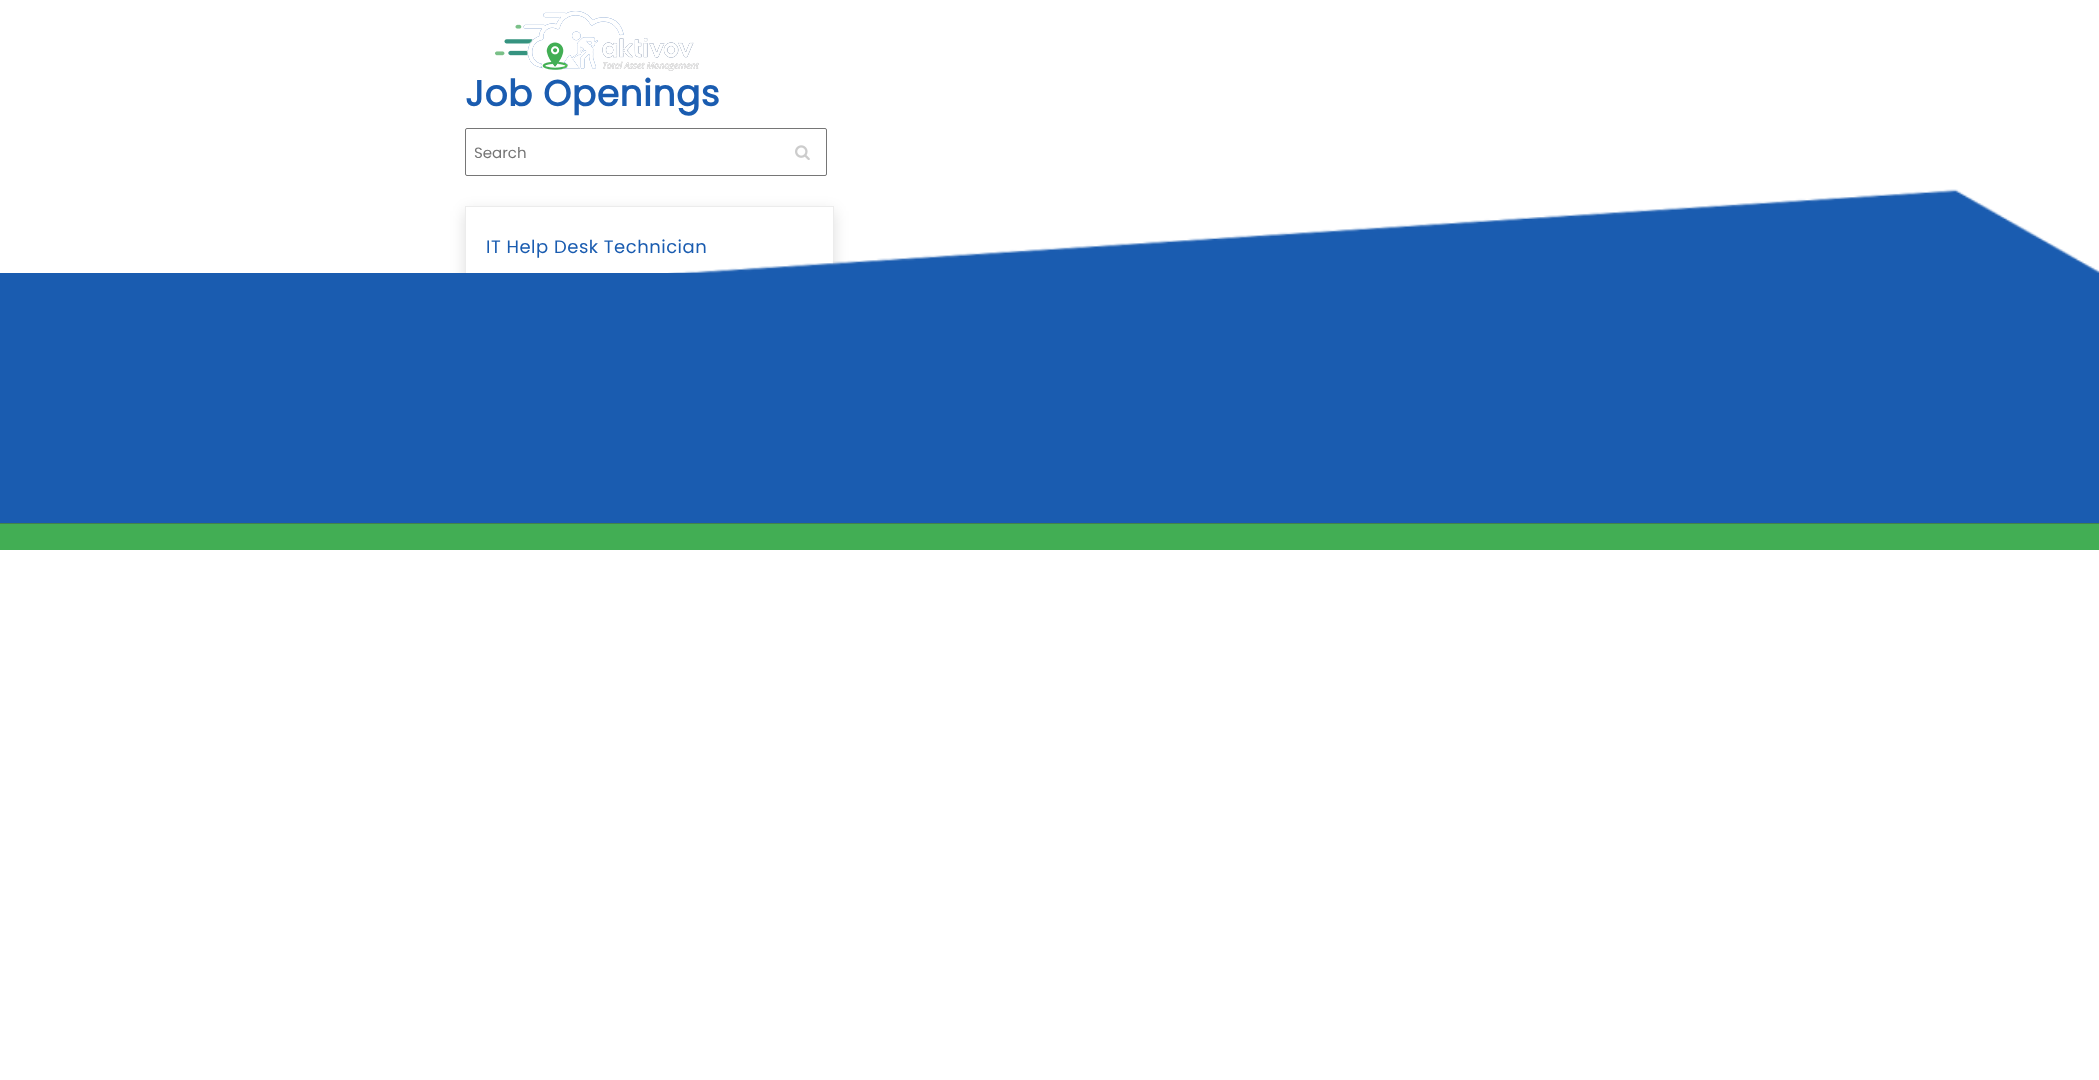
<?xml version="1.0" encoding="UTF-8"?>
<svg xmlns="http://www.w3.org/2000/svg" xmlns:xlink="http://www.w3.org/1999/xlink" width="2099" height="1080">
  <defs>
    <clipPath id="clip1"><path d="M 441 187 h 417 v 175 h -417 z m 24 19 h 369 v 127 h -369 z" clip-rule="evenodd" /></clipPath>
  </defs>
  <rect width="100%" height="100%" fill="#ffffff" />
  <image x="495" y="11" width="204" height="60" xlink:href="image1.png" />
  <rect x="465.5" y="128.5" width="361" height="47" rx="1.5" fill="none" stroke="#767676" />
  <image x="795" y="145" width="15" height="15" xlink:href="image2.png" />
  <g clip-path="url(#clip1)">
    <rect x="465" y="211" width="369" height="127" fill="#000000" fill-opacity="0.13" filter="blur(7.5px)" />
  </g>
  <rect x="465.5" y="206.5" width="368" height="126" fill="none" stroke="#ececec" />
  <rect y="273" width="2099" height="250" fill="#1a5cb0" />
  <rect y="524" width="2099" height="26" fill="#42ae54" />
  <rect y="523" width="2099" height="1" fill="#41824b" />
  <text x="465" y="106" style="font-family: Poppins; font-size: 36px; font-weight: bold; letter-spacing: 0.5px; fill: #1a5cb0">Job Openings</text>
  <text x="474" y="158" style="font-family: Poppins; font-size: 15px; fill: #757575">Search</text>
  <text x="486" y="253" style="font-family: Poppins; font-size: 18px; letter-spacing: 0.5px; fill: #1a5cb0">IT Help Desk Technician</text>
  <image x="668" y="189" width="1431" height="84" xlink:href="image3.png" />
</svg>
